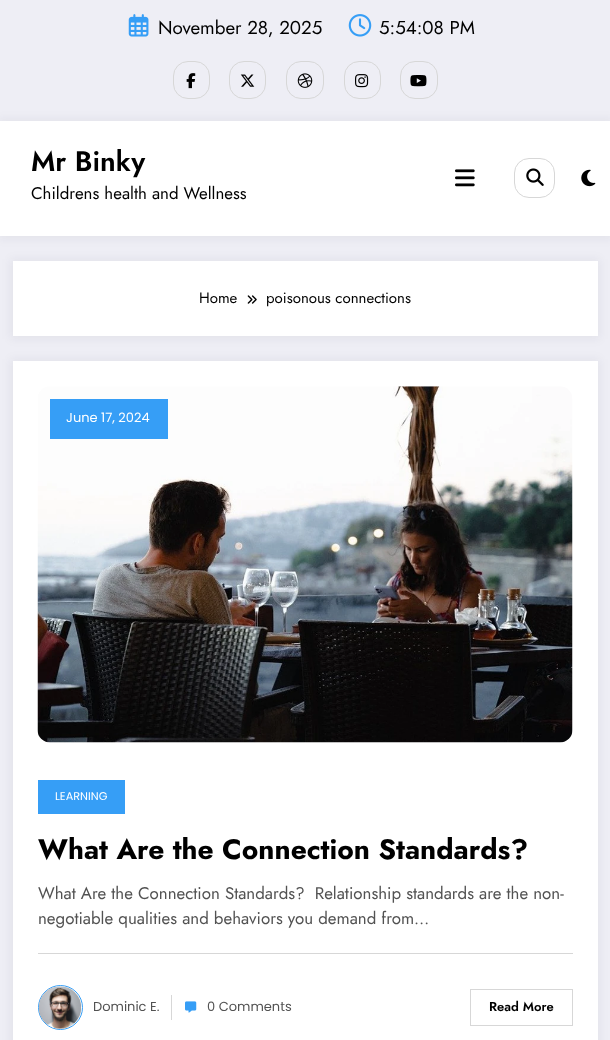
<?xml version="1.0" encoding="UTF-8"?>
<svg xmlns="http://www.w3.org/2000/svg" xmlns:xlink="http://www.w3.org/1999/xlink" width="610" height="1040">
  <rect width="100%" height="100%" fill="#eeeef5" />
  <image x="128" y="14" width="21" height="23" xlink:href="image1.png" />
  <image x="348" y="14" width="24" height="23" xlink:href="image2.png" />
  <rect x="173.5" y="61.5" width="36" height="37" rx="14.5" fill="none" stroke="#d7d7d7" />
  <image x="186" y="73" width="10" height="16" xlink:href="image3.png" />
  <rect x="229.5" y="61.5" width="36" height="37" rx="14.5" fill="none" stroke="#d7d7d7" />
  <image x="240" y="74" width="15" height="13" xlink:href="image4.png" />
  <rect x="286.5" y="61.5" width="37" height="37" rx="14.5" fill="none" stroke="#d7d7d7" />
  <image x="297" y="73" width="16" height="15" xlink:href="image5.png" />
  <rect x="344.5" y="61.5" width="36" height="37" rx="14.5" fill="none" stroke="#d7d7d7" />
  <image x="355" y="74" width="14" height="14" xlink:href="image6.png" />
  <rect x="400.5" y="61.5" width="37" height="37" rx="14.5" fill="none" stroke="#d7d7d7" />
  <image x="410" y="75" width="17" height="12" xlink:href="image7.png" />
  <rect x="-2" y="119" width="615" height="120" fill="#171723" fill-opacity="0.05" filter="blur(5px)" />
  <rect y="121" width="610" height="115" fill="#ffffff" />
  <image x="455" y="169" width="20" height="18" xlink:href="image8.png" />
  <rect x="514.5" y="158.5" width="40" height="39" rx="14.5" fill="none" stroke="#d7d7d7" />
  <image x="526" y="168" width="18" height="18" xlink:href="image9.png" />
  <image x="581" y="169" width="15" height="18" xlink:href="image10.png" />
  <rect x="10" y="259" width="590" height="80" fill="#171723" fill-opacity="0.05" filter="blur(5px)" />
  <rect x="13" y="261" width="585" height="75" fill="#ffffff" />
  <image x="247" y="295" width="10" height="9" xlink:href="image11.png" />
  <rect x="10" y="359" width="590" height="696" fill="#171723" fill-opacity="0.05" filter="blur(5px)" />
  <rect x="13" y="361" width="585" height="679" fill="#ffffff" />
  <image x="37" y="386" width="536" height="357" xlink:href="image12.png" />
  <rect x="50" y="399" width="118" height="40" fill="#369ef6" />
  <rect x="38" y="780" width="87" height="34" fill="#369ef6" />
  <rect x="38" y="953" width="535" height="1" fill="#d7d7d7" />
  <circle cx="60.5" cy="1007.5" r="22" fill="none" stroke="#369ef6" />
  <image x="38" y="986" width="44" height="43" xlink:href="image13.png" />
  <rect x="171" y="995" width="1" height="25" fill="#d7d7d7" />
  <image x="185" y="1001" width="12" height="12" xlink:href="image14.png" />
  <rect x="470.5" y="989.5" width="102" height="36" fill="none" stroke="#d7d7d7" />
  <text x="158" y="34" style="font-family: Jost; font-size: 18.75px; fill: #000000">November 28, 2025</text>
  <text x="379" y="34" style="font-family: Jost; font-size: 18.75px; fill: #000000">5:54:08 PM</text>
  <text x="31" y="171" style="font-family: Jost; font-size: 28.1px; font-weight: 600; fill: #000000">Mr Binky</text>
  <text x="31" y="199" style="font-family: Jost; font-size: 16.9px; fill: #000000">Childrens health and Wellness</text>
  <text x="199" y="303" style="font-family: Jost; font-size: 15px; fill: #000000">Home</text>
  <text x="266" y="303" style="font-family: Jost; font-size: 15px; fill: #000000">poisonous connections</text>
  <text x="66" y="422" style="font-family: Poppins; font-size: 13px; fill: #ffffff">June 17, 2024</text>
  <text x="55" y="800" style="font-family: Poppins; font-size: 11.25px; fill: #ffffff">LEARNING</text>
  <text x="38" y="859" style="font-family: Jost; font-size: 28.1px; font-weight: bold; fill: #000000">What Are the Connection Standards?</text>
  <text x="38" y="899" style="font-family: Jost; font-size: 16.9px; fill: #525252" xml:space="preserve">What Are the Connection Standards?  Relationship standards are the non-</text>
  <text x="38" y="924" style="font-family: Jost; font-size: 16.9px; fill: #525252">negotiable qualities and behaviors you demand from…</text>
  <text x="93" y="1011" style="font-family: Poppins; font-size: 13px; fill: #525252">Dominic E.</text>
  <text x="207" y="1011" style="font-family: Poppins; font-size: 13px; fill: #525252">0 Comments</text>
  <text x="489" y="1011" style="font-family: Jost; font-size: 13px; font-weight: 600; fill: #000000">Read More</text>
</svg>
